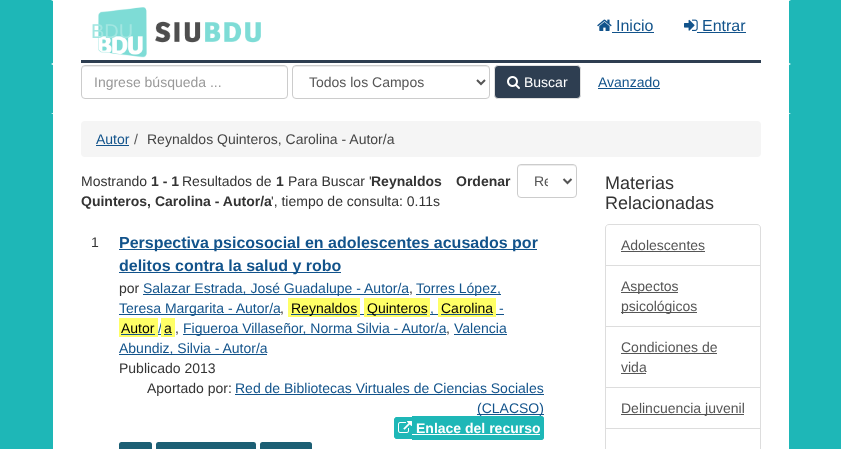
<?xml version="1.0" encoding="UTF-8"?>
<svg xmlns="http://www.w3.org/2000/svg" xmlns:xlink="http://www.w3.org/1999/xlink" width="841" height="449">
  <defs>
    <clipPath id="clip1"><rect x="534" y="172" width="14" height="18" /></clipPath>
  </defs>
  <rect width="100%" height="100%" fill="#1eb7b7" />
  <rect x="51" width="740" height="114" fill="#ffffff" />
  <path d="M 791 0 v 64 l -2 -1 v -62 z" fill="#1eb7b7" />
  <path d="M 51 64 v -64 l 2 1 v 62 z" fill="#1eb7b7" />
  <image x="98" y="7" width="163" height="51" xlink:href="image1.png" />
  <rect x="81" y="60" width="680" height="3" fill="#2e3e51" />
  <image x="597" y="19" width="15" height="12" xlink:href="image2.png" />
  <rect x="612" y="32" width="42" height="1" fill="#12538b" />
  <image x="684" y="19" width="14" height="12" xlink:href="image3.png" />
  <rect x="697" y="32" width="49" height="1" fill="#12538b" />
  <path d="M 791 64 v 50 l -2 -1 v -48 z" fill="#1eb7b7" />
  <path d="M 51 114 v -50 l 2 1 v 48 z" fill="#1eb7b7" />
  <path d="M 85 67 h 199 c 2 0 3 1 3 3 c 0 -2 -1 -4 -3 -4 h -199 c -2 0 -3 2 -3 4 c 0 -2 1 -3 3 -3 z" fill="#ececec" />
  <rect x="81.5" y="65.5" width="206" height="33" rx="3.5" fill="none" stroke="#cccccc" />
  <path d="M 296 67 h 190 c 2 0 3 1 3 3 c 0 -2 -1 -4 -3 -4 h -190 c -2 0 -3 2 -3 4 c 0 -2 1 -3 3 -3 z" fill="#ececec" />
  <rect x="292.5" y="65.5" width="197" height="33" rx="3.5" fill="none" stroke="#cccccc" />
  <path d="M 477 80 l 4 4 l 4 -4" fill="none" stroke="#555555" stroke-width="2" />
  <rect x="494.5" y="65.5" width="86" height="33" rx="3.5" fill="#2e3e51" stroke="#e0e0e0" />
  <image x="507" y="76" width="13" height="13" xlink:href="image4.png" />
  <rect x="598" y="88" width="62" height="1" fill="#12538b" />
  <rect x="53" y="114" width="736" height="335" fill="#ffffff" />
  <rect x="81" y="121" width="680" height="36" rx="4" fill="#f5f5f5" />
  <rect x="96" y="145" width="33" height="1" fill="#12538b" />
  <path d="M 521 166 h 52 c 2 0 3 1 3 3 c 0 -6 -7 -4 -12 -4 h -34 c -5 0 -12 -2 -12 4 c 0 -2 1 -3 3 -3 z" fill="#ececec" />
  <rect x="517.5" y="164.5" width="59" height="33" rx="3.5" fill="none" stroke="#cccccc" />
  <path d="M 563.5 179 l 4 4 l 4 -4" fill="none" stroke="#555555" stroke-width="2" />
  <rect x="119" y="249" width="418" height="1" fill="#12538b" />
  <rect x="119" y="272" width="222" height="1" fill="#12538b" />
  <rect x="143" y="294" width="266" height="1" fill="#12538b" />
  <rect x="416" y="294" width="85" height="1" fill="#12538b" />
  <rect x="119" y="314" width="161" height="1" fill="#12538b" />
  <rect x="288" y="298" width="72" height="19" fill="#ffff66" />
  <rect x="291" y="314" width="66" height="1" fill="#12538b" />
  <rect x="360" y="314" width="4" height="1" fill="#12538b" />
  <rect x="364" y="298" width="66" height="19" fill="#ffff66" />
  <rect x="438" y="298" width="58" height="19" fill="#ffff66" />
  <rect x="496" y="314" width="8" height="1" fill="#12538b" />
  <rect x="367" y="314" width="60" height="1" fill="#12538b" />
  <rect x="430" y="314" width="8" height="1" fill="#12538b" />
  <rect x="441" y="314" width="52" height="1" fill="#12538b" />
  <rect x="119" y="318" width="39" height="19" fill="#ffff66" />
  <rect x="121" y="334" width="34" height="1" fill="#12538b" />
  <rect x="158" y="334" width="3" height="1" fill="#12538b" />
  <rect x="183" y="334" width="263" height="1" fill="#12538b" />
  <rect x="454" y="334" width="53" height="1" fill="#12538b" />
  <rect x="119" y="354" width="148" height="1" fill="#12538b" />
  <rect x="235" y="394" width="309" height="1" fill="#12538b" />
  <rect x="477" y="414" width="67" height="1" fill="#12538b" />
  <path d="M 397 417 h 15 v 22 h -15 c -1.5 0 -3 -1.5 -3 -3 v -16 c 0 -1.5 1.5 -3 3 -3 z" fill="#1eb7b7" />
  <path d="M 397 417 h 15 v 22 h -15 c -1.5 0 -3 -1.5 -3 -3 v -16 c 0 -1.5 1.5 -3 3 -3 z m 0 2 h 15 v 18 h -15 c -0.5 0 -1 -0.5 -1 -1 v -16 c 0 -0.5 0.5 -1 1 -1 z" fill="#1eb7b7" fill-rule="evenodd" />
  <path d="M 412 416 h 129 c 1.5 0 3 1.5 3 3 v 18 c 0 1.5 -1.5 3 -3 3 h -129 z" fill="#1eb7b7" />
  <path d="M 412 416 h 129 c 2 0 3 1 3 3 v 18 c 0 2 -1 3 -3 3 h -129 z m 0 2 h 129 c 1 0 1 0 1 1 v 18 c 0 1 0 1 -1 1 h -129 z" fill="#1eb7b7" fill-rule="evenodd" />
  <image x="398" y="421" width="14" height="12" xlink:href="image5.png" />
  <rect x="412" y="434" width="128" height="1" fill="#ffffff" />
  <rect x="119" y="442" width="33" height="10" rx="2.5" fill="#1c5f74" />
  <rect x="156" y="442" width="100" height="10" rx="2.5" fill="#1c5f74" />
  <rect x="260" y="442" width="52" height="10" rx="2.5" fill="#1c5f74" />
  <path d="M 609 224.5 h 148 c 2 0 3.5 1.5 3.5 3.5 v 37.5 h -155 v -37.5 c 0 -2 1.5 -3.5 3.5 -3.5 z" fill="none" stroke="#dddddd" />
  <rect x="621" y="251" width="84" height="1" fill="#555555" />
  <rect x="605.5" y="265.5" width="155" height="61" fill="none" stroke="#dddddd" />
  <rect x="621" y="292" width="57" height="1" fill="#555555" />
  <rect x="621" y="312" width="76" height="1" fill="#555555" />
  <rect x="605.5" y="326.5" width="155" height="61" fill="none" stroke="#dddddd" />
  <rect x="621" y="353" width="96" height="1" fill="#555555" />
  <rect x="621" y="373" width="25" height="1" fill="#555555" />
  <rect x="605.5" y="387.5" width="155" height="41" fill="none" stroke="#dddddd" />
  <rect x="621" y="414" width="123" height="1" fill="#555555" />
  <rect x="605.5" y="428.5" width="155" height="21" fill="none" stroke="#dddddd" />
  <text x="91" y="38" style="font-family: Liberation Sans; font-size: 20px; fill: #a2e6e1">BDU</text>
  <text x="616" y="31" style="font-family: Liberation Sans; font-size: 16px; fill: #12538b">Inicio</text>
  <text x="702" y="31" style="font-family: Liberation Sans; font-size: 16px; fill: #12538b">Entrar</text>
  <text x="94" y="87" style="font-family: Liberation Sans; font-size: 14px; fill: #999999">Ingrese búsqueda ...</text>
  <text x="309" y="87" style="font-family: Liberation Sans; font-size: 14px; fill: #555555">Todos los Campos</text>
  <text x="524" y="87" style="font-family: Liberation Sans; font-size: 14px; fill: #ffffff">Buscar</text>
  <text x="598" y="87" style="font-family: Liberation Sans; font-size: 14px; fill: #12538b">Avanzado</text>
  <text x="96" y="144" style="font-family: Liberation Sans; font-size: 14px; fill: #12538b">Autor</text>
  <text x="134" y="144" style="font-family: Liberation Sans; font-size: 14px; fill: #555555">/</text>
  <text x="147" y="144" style="font-family: Liberation Sans; font-size: 14px; fill: #444444">Reynaldos Quinteros, Carolina - Autor/a</text>
  <text x="81" y="186" style="font-family: Liberation Sans; font-size: 14px; fill: #333333">Mostrando</text>
  <text x="151" y="186" style="font-family: Liberation Sans; font-size: 14px; font-weight: bold; fill: #333333">1 - 1</text>
  <text x="182" y="186" style="font-family: Liberation Sans; font-size: 14px; fill: #333333">Resultados de</text>
  <text x="276" y="186" style="font-family: Liberation Sans; font-size: 14px; font-weight: bold; fill: #333333">1</text>
  <text x="288" y="186" style="font-family: Liberation Sans; font-size: 14px; fill: #333333">Para Buscar '</text>
  <text x="371" y="186" style="font-family: Liberation Sans; font-size: 14px; font-weight: bold; fill: #333333">Reynaldos</text>
  <text x="81" y="206" style="font-family: Liberation Sans; font-size: 14px; font-weight: bold; fill: #333333">Quinteros, Carolina - Autor/a</text>
  <text x="271" y="206" style="font-family: Liberation Sans; font-size: 14px; fill: #333333">', tiempo de consulta: 0.11s</text>
  <text x="456" y="186" style="font-family: Liberation Sans; font-size: 14px; font-weight: bold; fill: #333333">Ordenar</text>
  <g clip-path="url(#clip1)">
    <text x="534" y="186" style="font-family: Liberation Sans; font-size: 14px; fill: #555555">Re</text>
  </g>
  <text x="91" y="247" style="font-family: Liberation Sans; font-size: 14px; fill: #333333">1</text>
  <text x="119" y="248" style="font-family: Liberation Sans; font-size: 16px; font-weight: bold; fill: #12538b">Perspectiva psicosocial en adolescentes acusados por</text>
  <text x="119" y="271" style="font-family: Liberation Sans; font-size: 16px; font-weight: bold; fill: #12538b">delitos contra la salud y robo</text>
  <text x="119" y="293" style="font-family: Liberation Sans; font-size: 14px; fill: #333333">por</text>
  <text x="143" y="293" style="font-family: Liberation Sans; font-size: 14px; fill: #12538b">Salazar Estrada, José Guadalupe - Autor/a</text>
  <text x="409" y="293" style="font-family: Liberation Sans; font-size: 14px; fill: #333333">,</text>
  <text x="416" y="293" style="font-family: Liberation Sans; font-size: 14px; fill: #12538b">Torres López,</text>
  <text x="119" y="313" style="font-family: Liberation Sans; font-size: 14px; fill: #12538b">Teresa Margarita - Autor/a</text>
  <text x="291" y="313" style="font-family: Liberation Sans; font-size: 14px; fill: #000000">Reynaldos</text>
  <text x="367" y="313" style="font-family: Liberation Sans; font-size: 14px; fill: #000000">Quinteros</text>
  <text x="441" y="313" style="font-family: Liberation Sans; font-size: 14px; fill: #000000">Carolina</text>
  <text x="499" y="313" style="font-family: Liberation Sans; font-size: 14px; fill: #12538b">-</text>
  <text x="280" y="313" style="font-family: Liberation Sans; font-size: 14px; fill: #333333">,</text>
  <text x="430" y="313" style="font-family: Liberation Sans; font-size: 14px; fill: #12538b">,</text>
  <text x="121" y="333" style="font-family: Liberation Sans; font-size: 14px; fill: #000000">Autor</text>
  <text x="158" y="333" style="font-family: Liberation Sans; font-size: 14px; fill: #12538b">/</text>
  <rect x="161" y="318" width="14" height="19" fill="#ffff66" />
  <text x="164" y="333" style="font-family: Liberation Sans; font-size: 14px; fill: #000000">a</text>
  <rect x="164" y="334" width="8" height="1" fill="#12538b" />
  <text x="175" y="333" style="font-family: Liberation Sans; font-size: 14px; fill: #333333">,</text>
  <text x="183" y="333" style="font-family: Liberation Sans; font-size: 14px; fill: #12538b">Figueroa Villaseñor, Norma Silvia - Autor/a</text>
  <text x="446" y="333" style="font-family: Liberation Sans; font-size: 14px; fill: #333333">,</text>
  <text x="454" y="333" style="font-family: Liberation Sans; font-size: 14px; fill: #12538b">Valencia</text>
  <text x="119" y="353" style="font-family: Liberation Sans; font-size: 14px; fill: #12538b">Abundiz, Silvia - Autor/a</text>
  <text x="119" y="373" style="font-family: Liberation Sans; font-size: 14px; fill: #333333">Publicado 2013</text>
  <text x="147" y="393" style="font-family: Liberation Sans; font-size: 14px; fill: #333333">Aportado por:</text>
  <text x="235" y="393" style="font-family: Liberation Sans; font-size: 14px; fill: #12538b">Red de Bibliotecas Virtuales de Ciencias Sociales</text>
  <text x="477" y="413" style="font-family: Liberation Sans; font-size: 14px; fill: #12538b">(CLACSO)</text>
  <text x="416" y="433" style="font-family: Liberation Sans; font-size: 14px; font-weight: bold; fill: #ffffff">Enlace del recurso</text>
  <text x="605" y="189" style="font-family: Liberation Sans; font-size: 18px; fill: #333333">Materias</text>
  <text x="605" y="209" style="font-family: Liberation Sans; font-size: 18px; fill: #333333">Relacionadas</text>
  <text x="621" y="250" style="font-family: Liberation Sans; font-size: 14px; fill: #555555">Adolescentes</text>
  <text x="621" y="291" style="font-family: Liberation Sans; font-size: 14px; fill: #555555">Aspectos</text>
  <text x="621" y="311" style="font-family: Liberation Sans; font-size: 14px; fill: #555555">psicológicos</text>
  <text x="621" y="352" style="font-family: Liberation Sans; font-size: 14px; fill: #555555">Condiciones de</text>
  <text x="621" y="372" style="font-family: Liberation Sans; font-size: 14px; fill: #555555">vida</text>
  <text x="621" y="413" style="font-family: Liberation Sans; font-size: 14px; fill: #555555">Delincuencia juvenil</text>
</svg>
